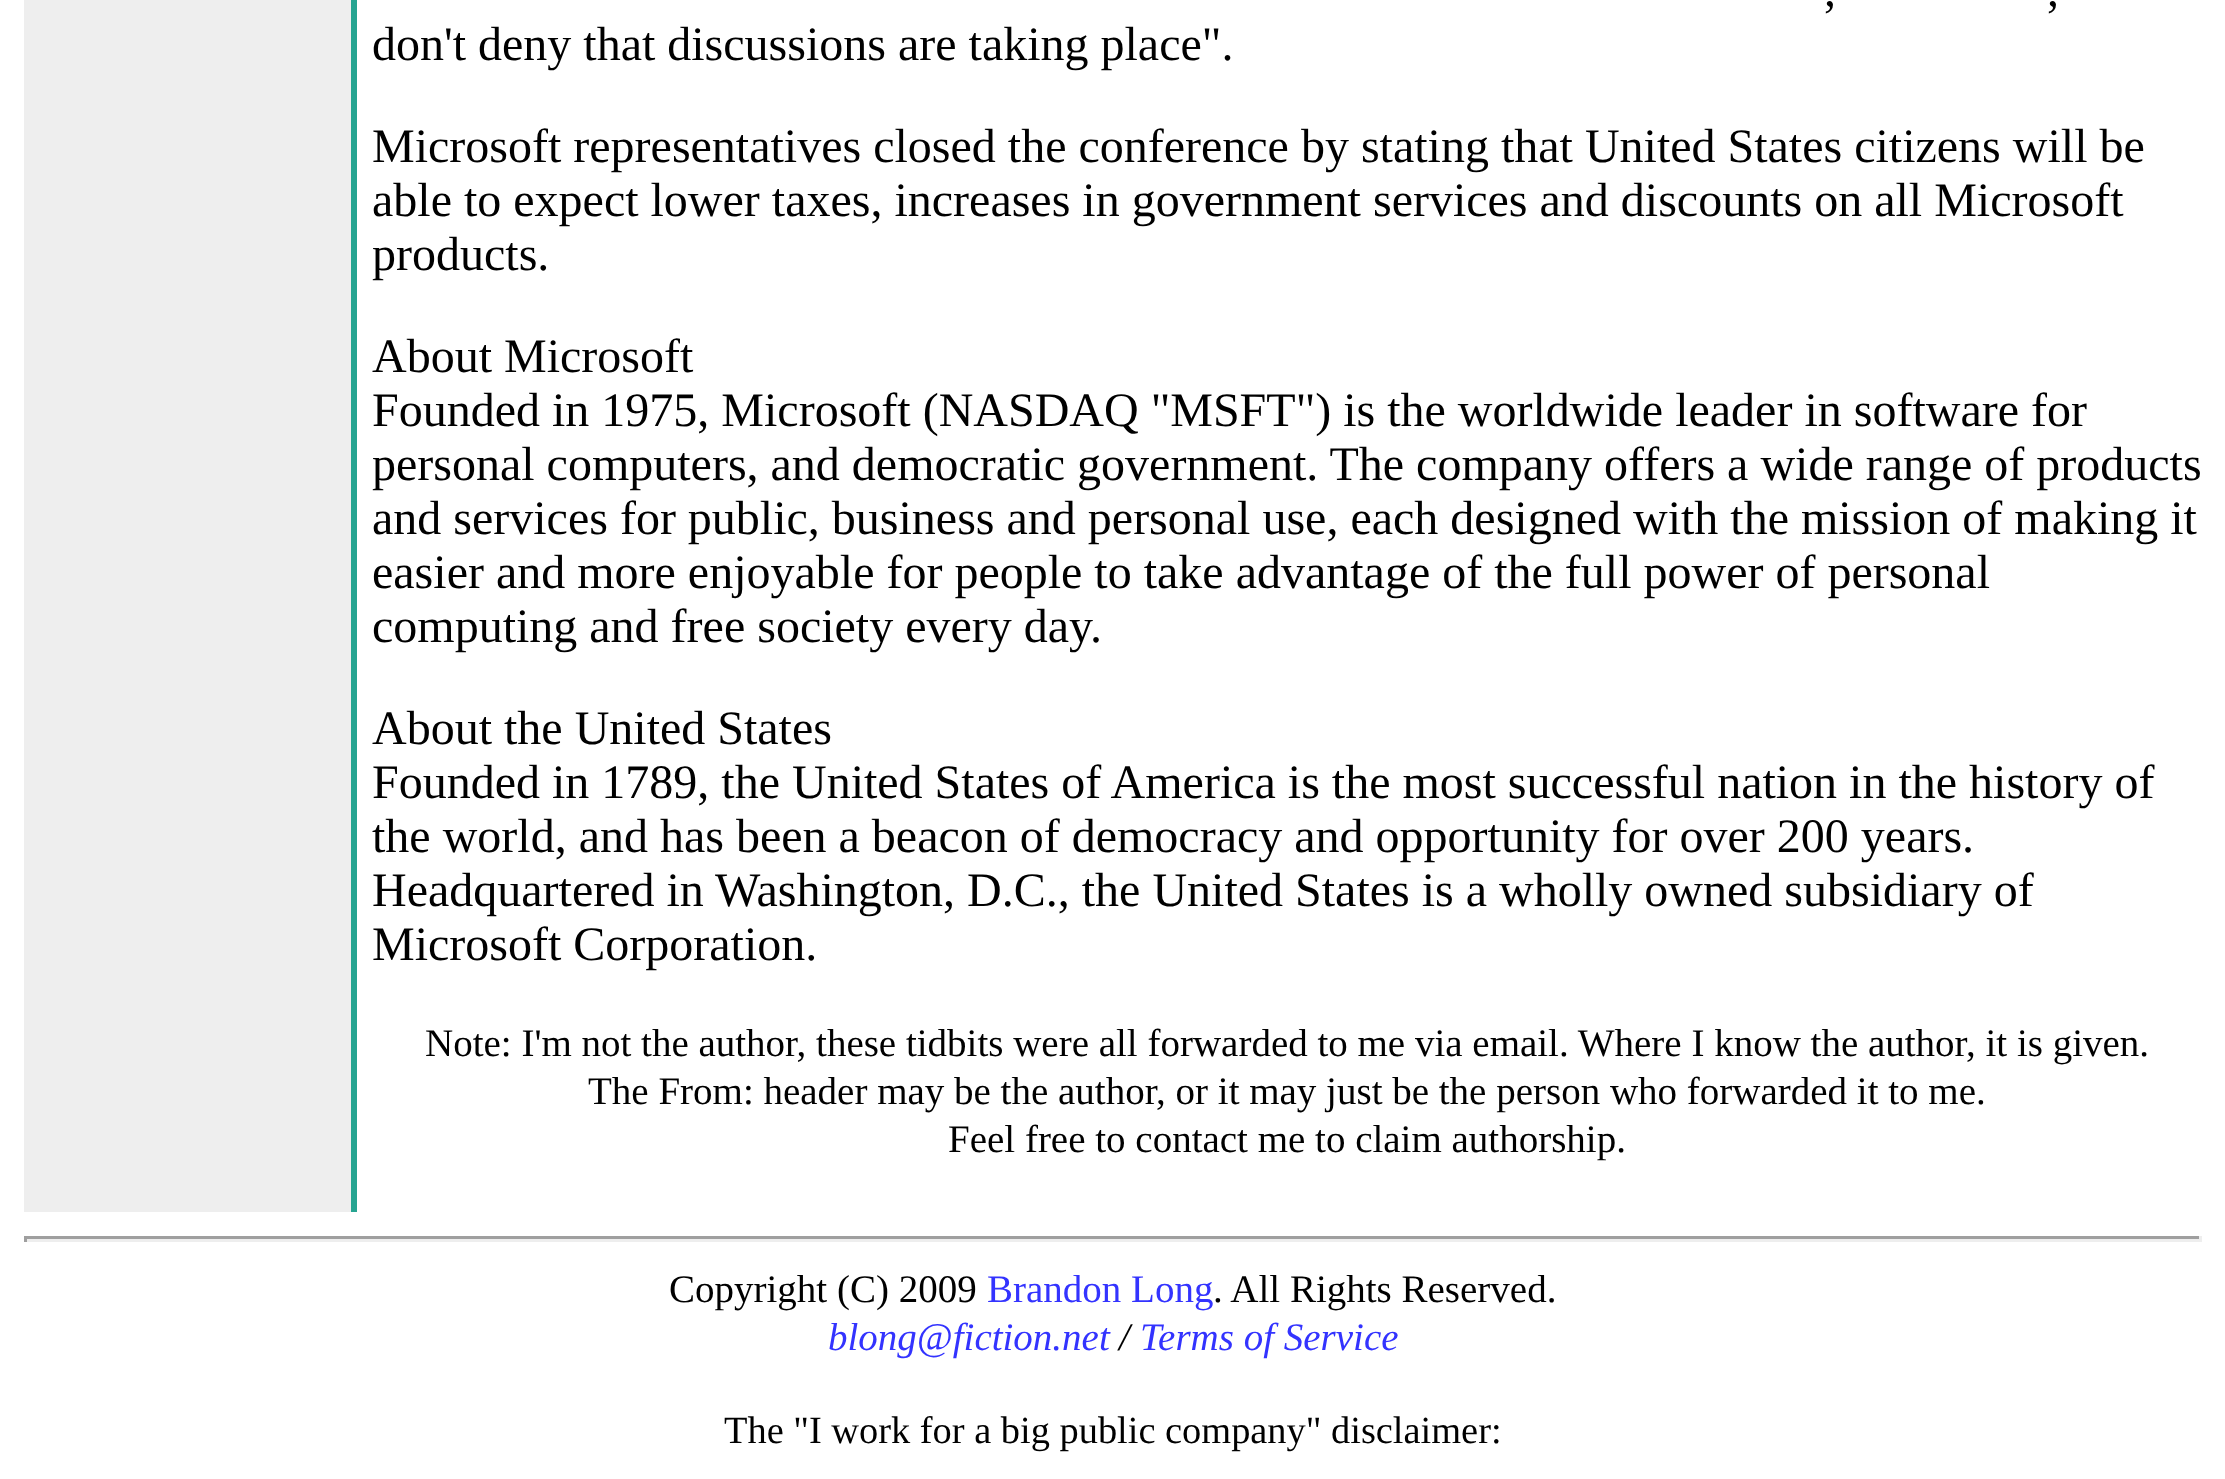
<?xml version="1.0" encoding="UTF-8"?>
<svg xmlns="http://www.w3.org/2000/svg" xmlns:xlink="http://www.w3.org/1999/xlink" width="2225" height="1479">
  <rect width="100%" height="100%" fill="#ffffff" />
  <rect x="24" width="327" height="1212" fill="#eeeeee" />
  <path d="M 351 1212 v -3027 l 6 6 v 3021 z" fill="#26a491" />
  <rect x="24" y="1236" width="2178" height="3" fill="#9f9f9f" />
  <rect x="2199" y="1236" width="3" height="6" fill="#eeeeee" />
  <rect x="24" y="1239" width="2178" height="3" fill="#eeeeee" />
  <rect x="24" y="1236" width="3" height="6" fill="#9f9f9f" />
  <text x="1824" y="6" style="font-family: Liberation Serif; font-size: 48px; fill: #000000">,</text>
  <text x="2047" y="6" style="font-family: Liberation Serif; font-size: 48px; fill: #000000">,</text>
  <text x="372" y="60" style="font-family: Liberation Serif; font-size: 48px; fill: #000000">don't deny that discussions are taking place".</text>
  <text x="372" y="162" style="font-family: Liberation Serif; font-size: 48px; fill: #000000">Microsoft representatives closed the conference by stating that United States citizens will be</text>
  <text x="372" y="216" style="font-family: Liberation Serif; font-size: 48px; fill: #000000">able to expect lower taxes, increases in government services and discounts on all Microsoft</text>
  <text x="372" y="270" style="font-family: Liberation Serif; font-size: 48px; fill: #000000">products.</text>
  <text x="372" y="372" style="font-family: Liberation Serif; font-size: 48px; fill: #000000">About Microsoft</text>
  <text x="372" y="426" style="font-family: Liberation Serif; font-size: 48px; fill: #000000">Founded in 1975, Microsoft (NASDAQ "MSFT") is the worldwide leader in software for</text>
  <text x="372" y="480" style="font-family: Liberation Serif; font-size: 48px; fill: #000000">personal computers, and democratic government. The company offers a wide range of products</text>
  <text x="372" y="534" style="font-family: Liberation Serif; font-size: 48px; fill: #000000">and services for public, business and personal use, each designed with the mission of making it</text>
  <text x="372" y="588" style="font-family: Liberation Serif; font-size: 48px; fill: #000000">easier and more enjoyable for people to take advantage of the full power of personal</text>
  <text x="372" y="642" style="font-family: Liberation Serif; font-size: 48px; fill: #000000">computing and free society every day.</text>
  <text x="372" y="744" style="font-family: Liberation Serif; font-size: 48px; fill: #000000">About the United States</text>
  <text x="372" y="798" style="font-family: Liberation Serif; font-size: 48px; fill: #000000">Founded in 1789, the United States of America is the most successful nation in the history of</text>
  <text x="372" y="852" style="font-family: Liberation Serif; font-size: 48px; fill: #000000">the world, and has been a beacon of democracy and opportunity for over 200 years.</text>
  <text x="372" y="906" style="font-family: Liberation Serif; font-size: 48px; fill: #000000">Headquartered in Washington, D.C., the United States is a wholly owned subsidiary of</text>
  <text x="372" y="960" style="font-family: Liberation Serif; font-size: 48px; fill: #000000">Microsoft Corporation.</text>
  <text x="425" y="1056" style="font-family: Liberation Serif; font-size: 39px; fill: #000000">Note: I'm not the author, these tidbits were all forwarded to me via email. Where I know the author, it is given.</text>
  <text x="588" y="1104" style="font-family: Liberation Serif; font-size: 39px; fill: #000000">The From: header may be the author, or it may just be the person who forwarded it to me.</text>
  <text x="948" y="1152" style="font-family: Liberation Serif; font-size: 39px; fill: #000000">Feel free to contact me to claim authorship.</text>
  <text x="669" y="1302" style="font-family: Liberation Serif; font-size: 39px; fill: #000000">Copyright (C) 2009</text>
  <text x="987" y="1302" style="font-family: Liberation Serif; font-size: 39px; fill: #3333ff">Brandon Long</text>
  <text x="1213" y="1302" style="font-family: Liberation Serif; font-size: 39px; fill: #000000">. All Rights Reserved.</text>
  <text x="828" y="1350" style="font-family: Liberation Serif; font-size: 39px; font-style: italic; fill: #3333ff">blong@fiction.net</text>
  <text x="1119" y="1350" style="font-family: Liberation Serif; font-size: 39px; font-style: italic; fill: #000000">/</text>
  <text x="1140" y="1350" style="font-family: Liberation Serif; font-size: 39px; font-style: italic; fill: #3333ff">Terms of Service</text>
  <text x="724" y="1443" style="font-family: Liberation Serif; font-size: 38.4px; fill: #000000">The "I work for a big public company" disclaimer:</text>
</svg>
